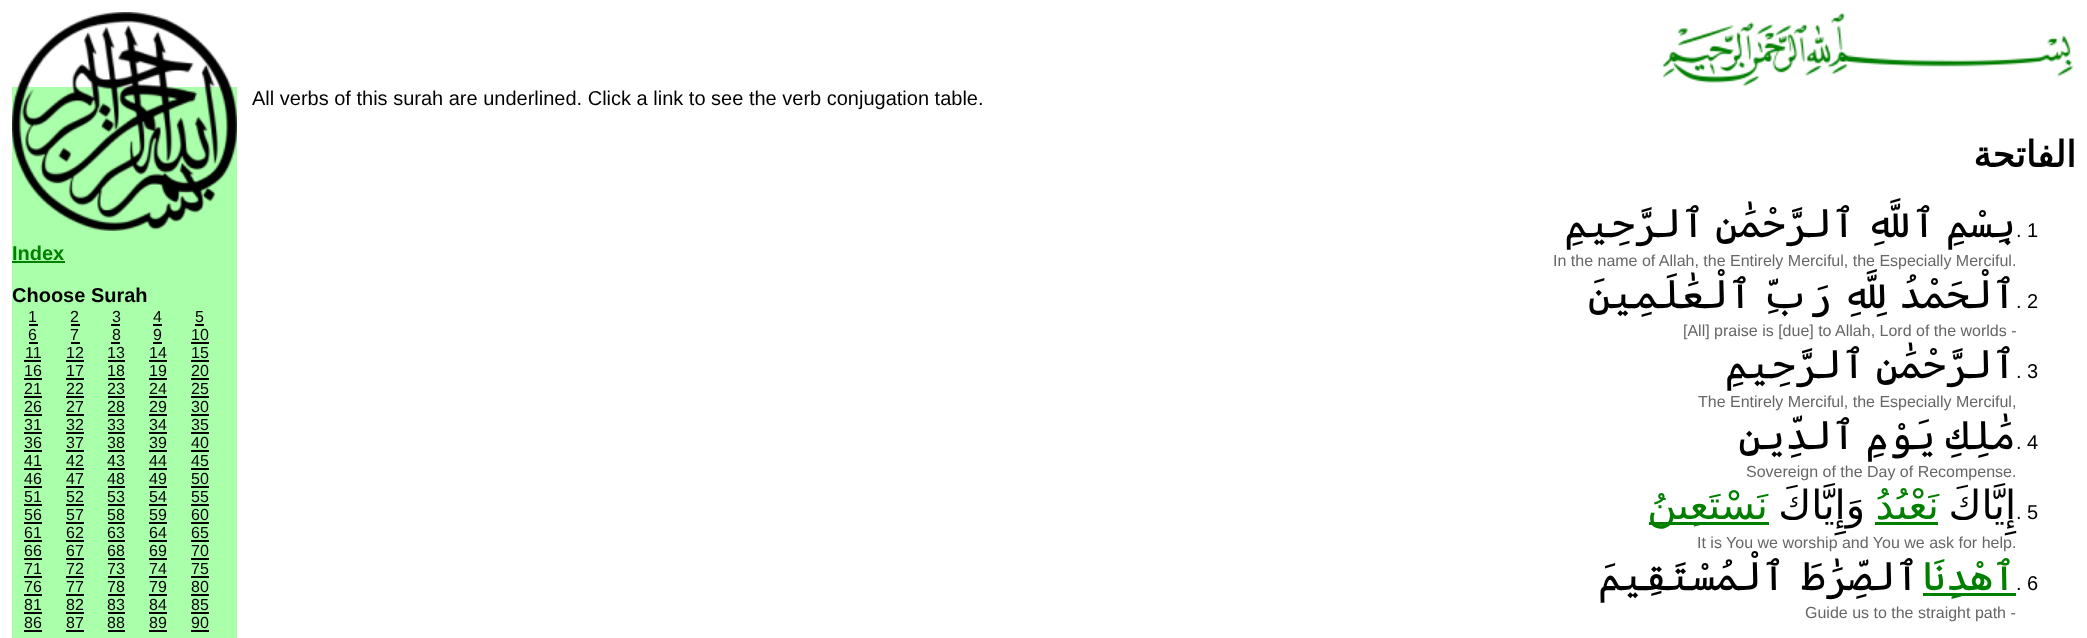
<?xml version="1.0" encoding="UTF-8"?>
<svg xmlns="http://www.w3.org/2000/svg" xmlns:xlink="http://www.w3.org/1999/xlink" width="2087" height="638">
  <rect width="100%" height="100%" fill="#ffffff" />
  <rect x="12" y="87" width="225" height="551" fill="#aaffaa" />
  <image x="12" y="12" width="225" height="219" xlink:href="image1.png" />
  <image x="1662" y="13" width="412" height="73" xlink:href="image2.png" />
  <rect x="12" y="261" width="53" height="2" fill="#007f00" />
  <rect x="29" y="324" width="9" height="2" fill="#000000" />
  <rect x="71" y="324" width="9" height="2" fill="#000000" />
  <rect x="111" y="324" width="9" height="2" fill="#000000" />
  <rect x="153" y="324" width="9" height="2" fill="#000000" />
  <rect x="195" y="324" width="9" height="2" fill="#000000" />
  <rect x="29" y="342" width="9" height="2" fill="#000000" />
  <rect x="71" y="342" width="9" height="2" fill="#000000" />
  <rect x="111" y="342" width="9" height="2" fill="#000000" />
  <rect x="153" y="342" width="9" height="2" fill="#000000" />
  <rect x="191" y="342" width="18" height="2" fill="#000000" />
  <rect x="24" y="360" width="17" height="2" fill="#000000" />
  <rect x="66" y="360" width="18" height="2" fill="#000000" />
  <rect x="108" y="360" width="17" height="2" fill="#000000" />
  <rect x="149" y="360" width="18" height="2" fill="#000000" />
  <rect x="191" y="360" width="18" height="2" fill="#000000" />
  <rect x="24" y="378" width="18" height="2" fill="#000000" />
  <rect x="66" y="378" width="18" height="2" fill="#000000" />
  <rect x="108" y="378" width="17" height="2" fill="#000000" />
  <rect x="149" y="378" width="18" height="2" fill="#000000" />
  <rect x="191" y="378" width="18" height="2" fill="#000000" />
  <rect x="24" y="396" width="18" height="2" fill="#000000" />
  <rect x="66" y="396" width="18" height="2" fill="#000000" />
  <rect x="108" y="396" width="17" height="2" fill="#000000" />
  <rect x="149" y="396" width="18" height="2" fill="#000000" />
  <rect x="191" y="396" width="18" height="2" fill="#000000" />
  <rect x="24" y="414" width="18" height="2" fill="#000000" />
  <rect x="66" y="414" width="18" height="2" fill="#000000" />
  <rect x="108" y="414" width="17" height="2" fill="#000000" />
  <rect x="149" y="414" width="18" height="2" fill="#000000" />
  <rect x="191" y="414" width="18" height="2" fill="#000000" />
  <rect x="24" y="432" width="18" height="2" fill="#000000" />
  <rect x="66" y="432" width="18" height="2" fill="#000000" />
  <rect x="108" y="432" width="17" height="2" fill="#000000" />
  <rect x="149" y="432" width="18" height="2" fill="#000000" />
  <rect x="191" y="432" width="18" height="2" fill="#000000" />
  <rect x="24" y="450" width="18" height="2" fill="#000000" />
  <rect x="66" y="450" width="18" height="2" fill="#000000" />
  <rect x="108" y="450" width="17" height="2" fill="#000000" />
  <rect x="149" y="450" width="18" height="2" fill="#000000" />
  <rect x="191" y="450" width="18" height="2" fill="#000000" />
  <rect x="24" y="468" width="18" height="2" fill="#000000" />
  <rect x="66" y="468" width="18" height="2" fill="#000000" />
  <rect x="108" y="468" width="17" height="2" fill="#000000" />
  <rect x="149" y="468" width="18" height="2" fill="#000000" />
  <rect x="191" y="468" width="18" height="2" fill="#000000" />
  <rect x="24" y="486" width="18" height="2" fill="#000000" />
  <rect x="66" y="486" width="18" height="2" fill="#000000" />
  <rect x="108" y="486" width="17" height="2" fill="#000000" />
  <rect x="149" y="486" width="18" height="2" fill="#000000" />
  <rect x="191" y="486" width="18" height="2" fill="#000000" />
  <rect x="24" y="504" width="18" height="2" fill="#000000" />
  <rect x="66" y="504" width="18" height="2" fill="#000000" />
  <rect x="108" y="504" width="17" height="2" fill="#000000" />
  <rect x="149" y="504" width="18" height="2" fill="#000000" />
  <rect x="191" y="504" width="18" height="2" fill="#000000" />
  <rect x="24" y="522" width="18" height="2" fill="#000000" />
  <rect x="66" y="522" width="18" height="2" fill="#000000" />
  <rect x="108" y="522" width="17" height="2" fill="#000000" />
  <rect x="149" y="522" width="18" height="2" fill="#000000" />
  <rect x="191" y="522" width="18" height="2" fill="#000000" />
  <rect x="24" y="540" width="18" height="2" fill="#000000" />
  <rect x="66" y="540" width="18" height="2" fill="#000000" />
  <rect x="108" y="540" width="17" height="2" fill="#000000" />
  <rect x="149" y="540" width="18" height="2" fill="#000000" />
  <rect x="191" y="540" width="18" height="2" fill="#000000" />
  <rect x="24" y="558" width="18" height="2" fill="#000000" />
  <rect x="66" y="558" width="18" height="2" fill="#000000" />
  <rect x="108" y="558" width="17" height="2" fill="#000000" />
  <rect x="149" y="558" width="18" height="2" fill="#000000" />
  <rect x="191" y="558" width="18" height="2" fill="#000000" />
  <rect x="24" y="576" width="18" height="2" fill="#000000" />
  <rect x="66" y="576" width="18" height="2" fill="#000000" />
  <rect x="108" y="576" width="17" height="2" fill="#000000" />
  <rect x="149" y="576" width="18" height="2" fill="#000000" />
  <rect x="191" y="576" width="18" height="2" fill="#000000" />
  <rect x="24" y="594" width="18" height="2" fill="#000000" />
  <rect x="66" y="594" width="18" height="2" fill="#000000" />
  <rect x="108" y="594" width="17" height="2" fill="#000000" />
  <rect x="149" y="594" width="18" height="2" fill="#000000" />
  <rect x="191" y="594" width="18" height="2" fill="#000000" />
  <rect x="24" y="612" width="18" height="2" fill="#000000" />
  <rect x="66" y="612" width="18" height="2" fill="#000000" />
  <rect x="108" y="612" width="17" height="2" fill="#000000" />
  <rect x="149" y="612" width="18" height="2" fill="#000000" />
  <rect x="191" y="612" width="18" height="2" fill="#000000" />
  <rect x="24" y="630" width="18" height="2" fill="#000000" />
  <rect x="66" y="630" width="18" height="2" fill="#000000" />
  <rect x="108" y="630" width="17" height="2" fill="#000000" />
  <rect x="149" y="630" width="18" height="2" fill="#000000" />
  <rect x="191" y="630" width="18" height="2" fill="#000000" />
  <rect x="1649" y="522" width="120" height="3" fill="#007f00" />
  <rect x="1875" y="522" width="63" height="3" fill="#007f00" />
  <rect x="1923" y="593" width="93" height="3" fill="#007f00" />
  <text x="12" y="260" style="font-family: Liberation Sans; font-size: 20px; font-weight: bold; fill: #007f00">Index</text>
  <text x="12" y="302" style="font-family: Liberation Sans; font-size: 20px; font-weight: bold; fill: #000000">Choose Surah</text>
  <text x="28" y="322" style="font-family: Liberation Sans; font-size: 16px; fill: #000000">1</text>
  <text x="70" y="322" style="font-family: Liberation Sans; font-size: 16px; fill: #000000">2</text>
  <text x="112" y="322" style="font-family: Liberation Sans; font-size: 16px; fill: #000000">3</text>
  <text x="153" y="322" style="font-family: Liberation Sans; font-size: 16px; fill: #000000">4</text>
  <text x="195" y="322" style="font-family: Liberation Sans; font-size: 16px; fill: #000000">5</text>
  <text x="28" y="340" style="font-family: Liberation Sans; font-size: 16px; fill: #000000">6</text>
  <text x="70" y="340" style="font-family: Liberation Sans; font-size: 16px; fill: #000000">7</text>
  <text x="112" y="340" style="font-family: Liberation Sans; font-size: 16px; fill: #000000">8</text>
  <text x="153" y="340" style="font-family: Liberation Sans; font-size: 16px; fill: #000000">9</text>
  <text x="191" y="340" style="font-family: Liberation Sans; font-size: 16px; fill: #000000">10</text>
  <text x="25" y="358" style="font-family: Liberation Sans; font-size: 16px; fill: #000000">11</text>
  <text x="66" y="358" style="font-family: Liberation Sans; font-size: 16px; fill: #000000">12</text>
  <text x="107" y="358" style="font-family: Liberation Sans; font-size: 16px; fill: #000000">13</text>
  <text x="149" y="358" style="font-family: Liberation Sans; font-size: 16px; fill: #000000">14</text>
  <text x="191" y="358" style="font-family: Liberation Sans; font-size: 16px; fill: #000000">15</text>
  <text x="24" y="376" style="font-family: Liberation Sans; font-size: 16px; fill: #000000">16</text>
  <text x="66" y="376" style="font-family: Liberation Sans; font-size: 16px; fill: #000000">17</text>
  <text x="107" y="376" style="font-family: Liberation Sans; font-size: 16px; fill: #000000">18</text>
  <text x="149" y="376" style="font-family: Liberation Sans; font-size: 16px; fill: #000000">19</text>
  <text x="191" y="376" style="font-family: Liberation Sans; font-size: 16px; fill: #000000">20</text>
  <text x="24" y="394" style="font-family: Liberation Sans; font-size: 16px; fill: #000000">21</text>
  <text x="66" y="394" style="font-family: Liberation Sans; font-size: 16px; fill: #000000">22</text>
  <text x="107" y="394" style="font-family: Liberation Sans; font-size: 16px; fill: #000000">23</text>
  <text x="149" y="394" style="font-family: Liberation Sans; font-size: 16px; fill: #000000">24</text>
  <text x="191" y="394" style="font-family: Liberation Sans; font-size: 16px; fill: #000000">25</text>
  <text x="24" y="412" style="font-family: Liberation Sans; font-size: 16px; fill: #000000">26</text>
  <text x="66" y="412" style="font-family: Liberation Sans; font-size: 16px; fill: #000000">27</text>
  <text x="107" y="412" style="font-family: Liberation Sans; font-size: 16px; fill: #000000">28</text>
  <text x="149" y="412" style="font-family: Liberation Sans; font-size: 16px; fill: #000000">29</text>
  <text x="191" y="412" style="font-family: Liberation Sans; font-size: 16px; fill: #000000">30</text>
  <text x="24" y="430" style="font-family: Liberation Sans; font-size: 16px; fill: #000000">31</text>
  <text x="66" y="430" style="font-family: Liberation Sans; font-size: 16px; fill: #000000">32</text>
  <text x="107" y="430" style="font-family: Liberation Sans; font-size: 16px; fill: #000000">33</text>
  <text x="149" y="430" style="font-family: Liberation Sans; font-size: 16px; fill: #000000">34</text>
  <text x="191" y="430" style="font-family: Liberation Sans; font-size: 16px; fill: #000000">35</text>
  <text x="24" y="448" style="font-family: Liberation Sans; font-size: 16px; fill: #000000">36</text>
  <text x="66" y="448" style="font-family: Liberation Sans; font-size: 16px; fill: #000000">37</text>
  <text x="107" y="448" style="font-family: Liberation Sans; font-size: 16px; fill: #000000">38</text>
  <text x="149" y="448" style="font-family: Liberation Sans; font-size: 16px; fill: #000000">39</text>
  <text x="191" y="448" style="font-family: Liberation Sans; font-size: 16px; fill: #000000">40</text>
  <text x="24" y="466" style="font-family: Liberation Sans; font-size: 16px; fill: #000000">41</text>
  <text x="66" y="466" style="font-family: Liberation Sans; font-size: 16px; fill: #000000">42</text>
  <text x="107" y="466" style="font-family: Liberation Sans; font-size: 16px; fill: #000000">43</text>
  <text x="149" y="466" style="font-family: Liberation Sans; font-size: 16px; fill: #000000">44</text>
  <text x="191" y="466" style="font-family: Liberation Sans; font-size: 16px; fill: #000000">45</text>
  <text x="24" y="484" style="font-family: Liberation Sans; font-size: 16px; fill: #000000">46</text>
  <text x="66" y="484" style="font-family: Liberation Sans; font-size: 16px; fill: #000000">47</text>
  <text x="107" y="484" style="font-family: Liberation Sans; font-size: 16px; fill: #000000">48</text>
  <text x="149" y="484" style="font-family: Liberation Sans; font-size: 16px; fill: #000000">49</text>
  <text x="191" y="484" style="font-family: Liberation Sans; font-size: 16px; fill: #000000">50</text>
  <text x="24" y="502" style="font-family: Liberation Sans; font-size: 16px; fill: #000000">51</text>
  <text x="66" y="502" style="font-family: Liberation Sans; font-size: 16px; fill: #000000">52</text>
  <text x="107" y="502" style="font-family: Liberation Sans; font-size: 16px; fill: #000000">53</text>
  <text x="149" y="502" style="font-family: Liberation Sans; font-size: 16px; fill: #000000">54</text>
  <text x="191" y="502" style="font-family: Liberation Sans; font-size: 16px; fill: #000000">55</text>
  <text x="24" y="520" style="font-family: Liberation Sans; font-size: 16px; fill: #000000">56</text>
  <text x="66" y="520" style="font-family: Liberation Sans; font-size: 16px; fill: #000000">57</text>
  <text x="107" y="520" style="font-family: Liberation Sans; font-size: 16px; fill: #000000">58</text>
  <text x="149" y="520" style="font-family: Liberation Sans; font-size: 16px; fill: #000000">59</text>
  <text x="191" y="520" style="font-family: Liberation Sans; font-size: 16px; fill: #000000">60</text>
  <text x="24" y="538" style="font-family: Liberation Sans; font-size: 16px; fill: #000000">61</text>
  <text x="66" y="538" style="font-family: Liberation Sans; font-size: 16px; fill: #000000">62</text>
  <text x="107" y="538" style="font-family: Liberation Sans; font-size: 16px; fill: #000000">63</text>
  <text x="149" y="538" style="font-family: Liberation Sans; font-size: 16px; fill: #000000">64</text>
  <text x="191" y="538" style="font-family: Liberation Sans; font-size: 16px; fill: #000000">65</text>
  <text x="24" y="556" style="font-family: Liberation Sans; font-size: 16px; fill: #000000">66</text>
  <text x="66" y="556" style="font-family: Liberation Sans; font-size: 16px; fill: #000000">67</text>
  <text x="107" y="556" style="font-family: Liberation Sans; font-size: 16px; fill: #000000">68</text>
  <text x="149" y="556" style="font-family: Liberation Sans; font-size: 16px; fill: #000000">69</text>
  <text x="191" y="556" style="font-family: Liberation Sans; font-size: 16px; fill: #000000">70</text>
  <text x="24" y="574" style="font-family: Liberation Sans; font-size: 16px; fill: #000000">71</text>
  <text x="66" y="574" style="font-family: Liberation Sans; font-size: 16px; fill: #000000">72</text>
  <text x="107" y="574" style="font-family: Liberation Sans; font-size: 16px; fill: #000000">73</text>
  <text x="149" y="574" style="font-family: Liberation Sans; font-size: 16px; fill: #000000">74</text>
  <text x="191" y="574" style="font-family: Liberation Sans; font-size: 16px; fill: #000000">75</text>
  <text x="24" y="592" style="font-family: Liberation Sans; font-size: 16px; fill: #000000">76</text>
  <text x="66" y="592" style="font-family: Liberation Sans; font-size: 16px; fill: #000000">77</text>
  <text x="107" y="592" style="font-family: Liberation Sans; font-size: 16px; fill: #000000">78</text>
  <text x="149" y="592" style="font-family: Liberation Sans; font-size: 16px; fill: #000000">79</text>
  <text x="191" y="592" style="font-family: Liberation Sans; font-size: 16px; fill: #000000">80</text>
  <text x="24" y="610" style="font-family: Liberation Sans; font-size: 16px; fill: #000000">81</text>
  <text x="66" y="610" style="font-family: Liberation Sans; font-size: 16px; fill: #000000">82</text>
  <text x="107" y="610" style="font-family: Liberation Sans; font-size: 16px; fill: #000000">83</text>
  <text x="149" y="610" style="font-family: Liberation Sans; font-size: 16px; fill: #000000">84</text>
  <text x="191" y="610" style="font-family: Liberation Sans; font-size: 16px; fill: #000000">85</text>
  <text x="24" y="628" style="font-family: Liberation Sans; font-size: 16px; fill: #000000">86</text>
  <text x="66" y="628" style="font-family: Liberation Sans; font-size: 16px; fill: #000000">87</text>
  <text x="107" y="628" style="font-family: Liberation Sans; font-size: 16px; fill: #000000">88</text>
  <text x="149" y="628" style="font-family: Liberation Sans; font-size: 16px; fill: #000000">89</text>
  <text x="191" y="628" style="font-family: Liberation Sans; font-size: 16px; fill: #000000">90</text>
  <text x="252" y="105" style="font-family: Liberation Sans; font-size: 20px; fill: #000000">All verbs of this surah are underlined. Click a link to see the verb conjugation table.</text>
  <text x="2076" y="167" style="font-family: DejaVu Sans; font-size: 36px; font-weight: bold; direction: rtl; fill: #000000">الفاتحة</text>
  <text x="2016" y="237" style="font-family: Liberation Sans; font-size: 20px; fill: #000000">. 1</text>
  <text x="2016" y="237" word-spacing="-13.5" style="font-family: Cascadia Code; font-size: 40px; direction: rtl; fill: #000000">بِسْمِ ٱللَّهِ ٱلرَّحْمَٰنِ ٱلرَّحِيمِ</text>
  <text x="1553" y="266" style="font-family: Liberation Sans; font-size: 16px; fill: #666666">In the name of Allah, the Entirely Merciful, the Especially Merciful.</text>
  <text x="2016" y="308" style="font-family: Liberation Sans; font-size: 20px; fill: #000000">. 2</text>
  <text x="2016" y="308" word-spacing="-13.5" style="font-family: Cascadia Code; font-size: 40px; direction: rtl; fill: #000000">ٱلْحَمْدُ لِلَّهِ رَبِّ ٱلْعَٰلَمِينَ</text>
  <text x="1683" y="336" style="font-family: Liberation Sans; font-size: 16px; fill: #666666">[All] praise is [due] to Allah, Lord of the worlds -</text>
  <text x="2016" y="378" style="font-family: Liberation Sans; font-size: 20px; fill: #000000">. 3</text>
  <text x="2016" y="378" word-spacing="-13.5" style="font-family: Cascadia Code; font-size: 40px; direction: rtl; fill: #000000">ٱلرَّحْمَٰنِ ٱلرَّحِيمِ</text>
  <text x="1698" y="407" style="font-family: Liberation Sans; font-size: 16px; fill: #666666">The Entirely Merciful, the Especially Merciful,</text>
  <text x="2016" y="449" style="font-family: Liberation Sans; font-size: 20px; fill: #000000">. 4</text>
  <text x="2016" y="449" word-spacing="-13.5" style="font-family: Cascadia Code; font-size: 40px; direction: rtl; fill: #000000">مَٰلِكِ يَوْمِ ٱلدِّينِ</text>
  <text x="1746" y="477" style="font-family: Liberation Sans; font-size: 16px; fill: #666666">Sovereign of the Day of Recompense.</text>
  <text x="1768" y="519" style="font-family: DejaVu Sans; font-size: 40px; direction: rtl; fill: #007f00">نَسْتَعِينُ</text>
  <text x="1865" y="519" style="font-family: DejaVu Sans; font-size: 40px; direction: rtl; fill: #000000">وَإِيَّاكَ</text>
  <text x="1939" y="519" style="font-family: DejaVu Sans; font-size: 40px; direction: rtl; fill: #007f00">نَعْبُدُ</text>
  <text x="2016" y="519" style="font-family: DejaVu Sans; font-size: 40px; direction: rtl; fill: #000000">إِيَّاكَ</text>
  <text x="2016" y="519" style="font-family: Liberation Sans; font-size: 20px; fill: #000000">. 5</text>
  <text x="1697" y="548" style="font-family: Liberation Sans; font-size: 16px; fill: #666666">It is You we worship and You we ask for help.</text>
  <text x="1919" y="590" word-spacing="-7" style="font-family: Cascadia Code; font-size: 40px; direction: rtl; fill: #000000">ٱلصِّرَٰطَ ٱلْمُسْتَقِيمَ</text>
  <text x="2016" y="590" style="font-family: Cascadia Code; font-size: 40px; direction: rtl; fill: #007f00">ٱهْدِنَا</text>
  <text x="2016" y="590" style="font-family: Liberation Sans; font-size: 20px; fill: #000000">. 6</text>
  <text x="1805" y="618" style="font-family: Liberation Sans; font-size: 16px; fill: #666666">Guide us to the straight path -</text>
</svg>
